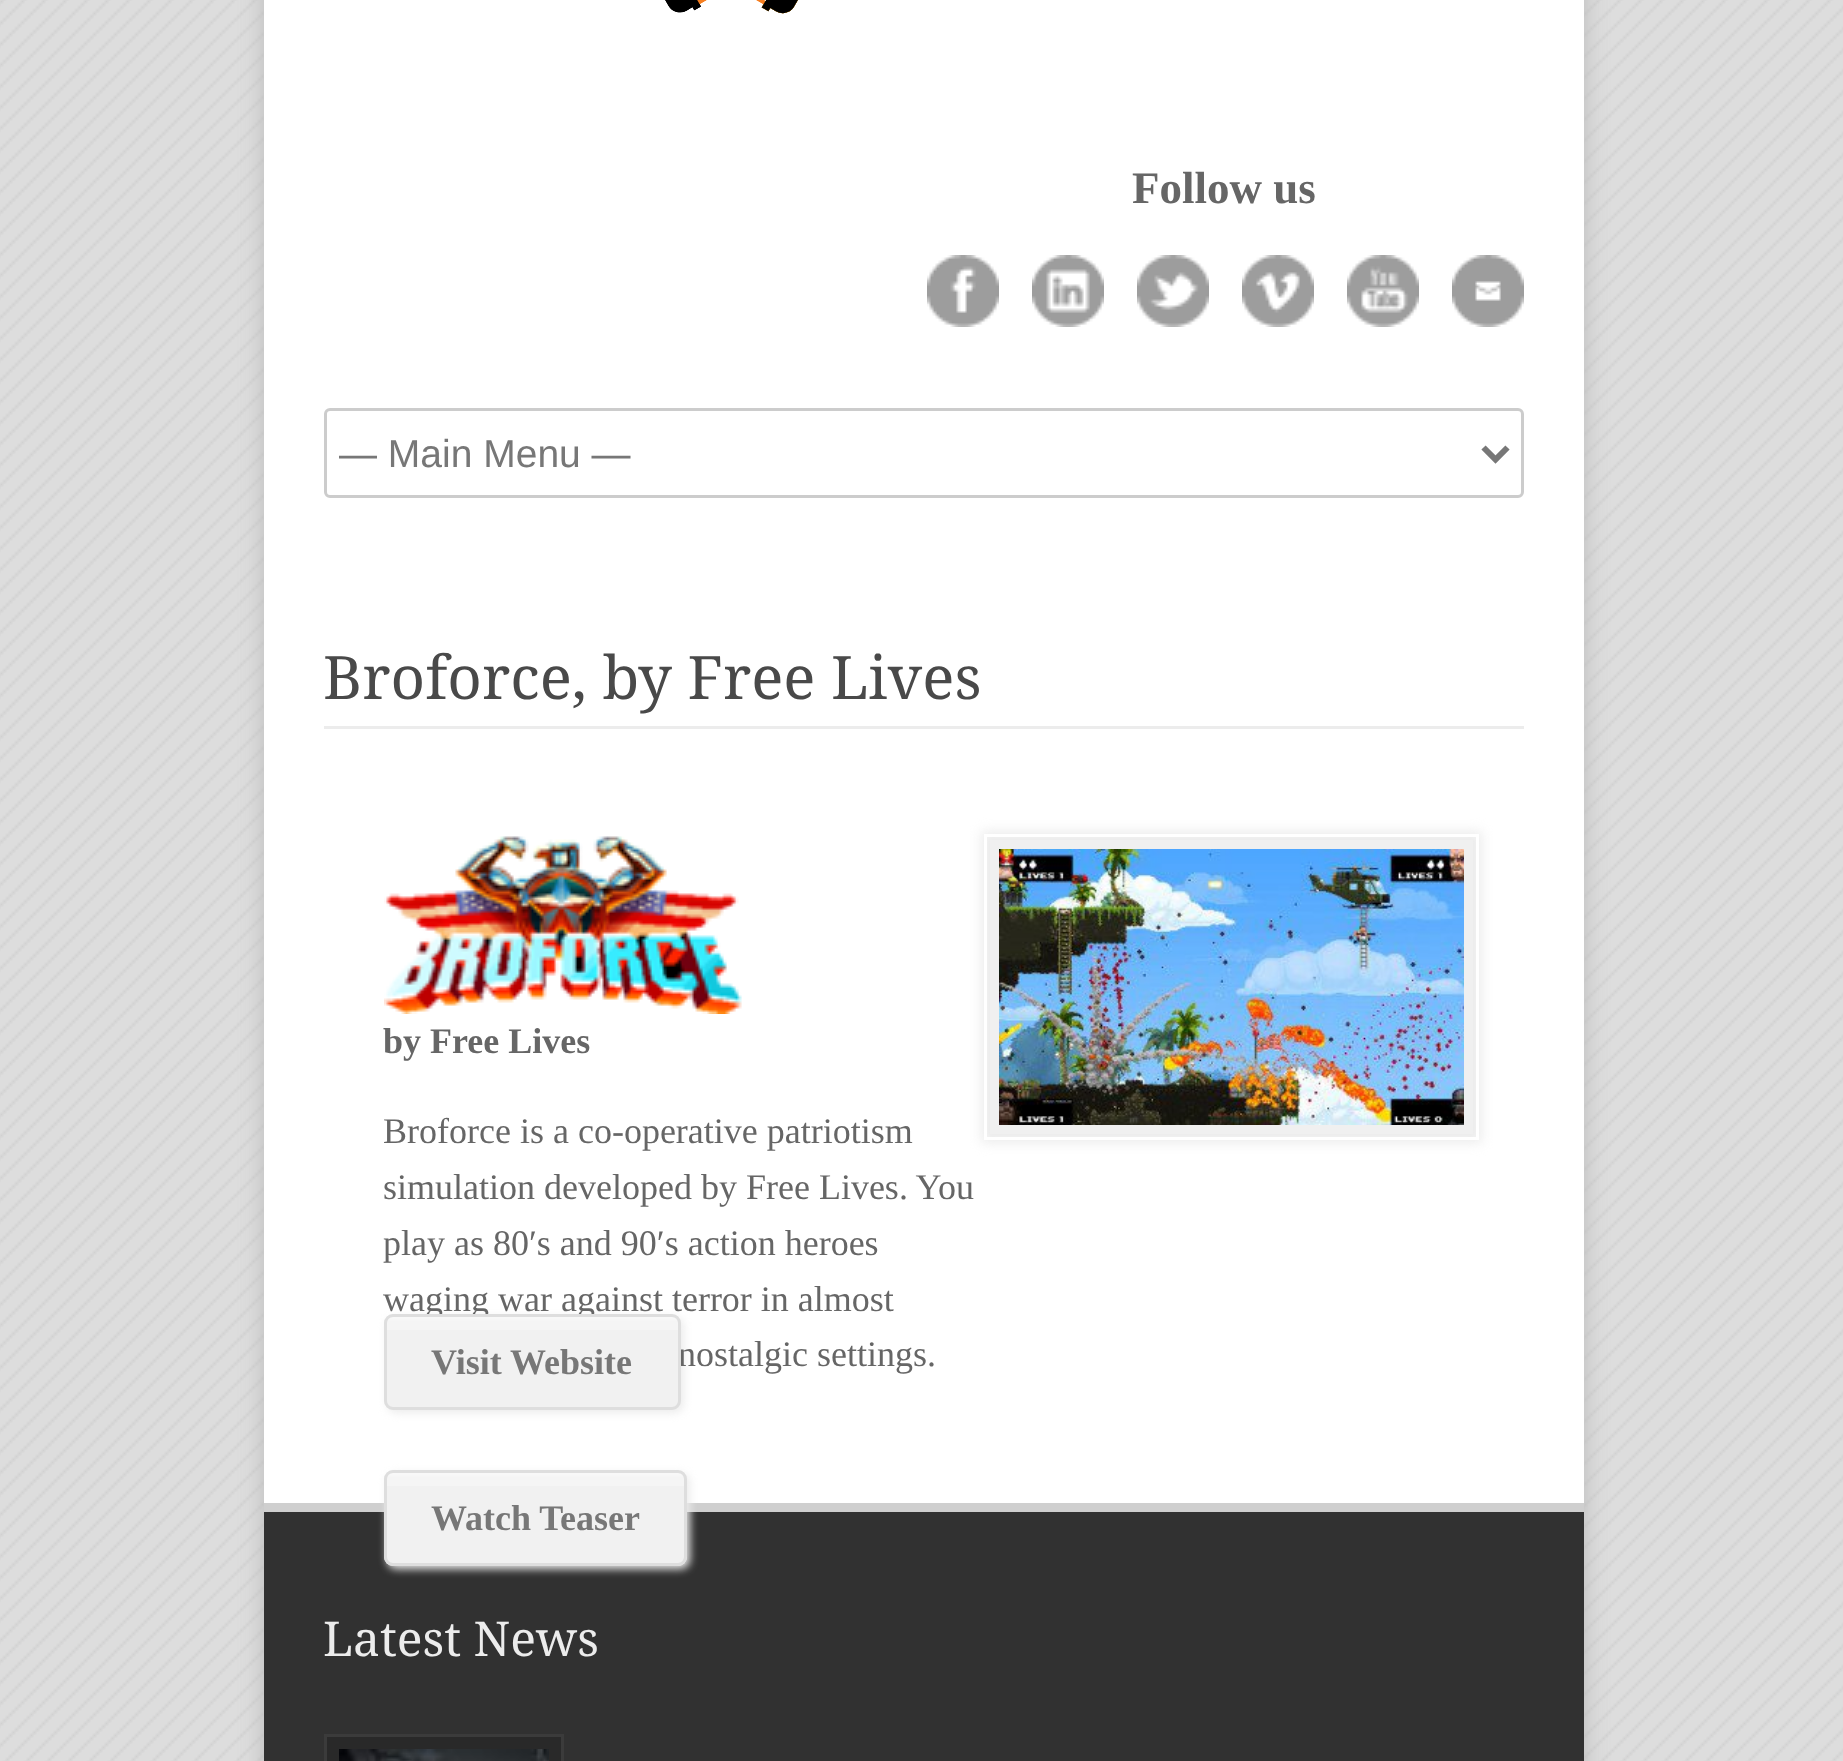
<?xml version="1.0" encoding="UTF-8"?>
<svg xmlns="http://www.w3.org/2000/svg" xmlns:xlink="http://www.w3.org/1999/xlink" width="1843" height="1761">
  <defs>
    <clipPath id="clip1"><rect x="339" y="429" width="1134" height="51" /></clipPath>
  </defs>
  <rect width="100%" height="100%" fill="#dddddd" />
  <image x="0" y="0" width="1843" height="1761" xlink:href="image1.png" />
  <rect x="264" y="-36" width="1320" height="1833" fill="#bbbbbb" filter="blur(12px)" />
  <rect x="264" width="1320" height="1503" fill="#ffffff" />
  <image x="665" y="0" width="133" height="14" xlink:href="image2.png" />
  <image x="927" y="255" width="72" height="72" xlink:href="image3.png" />
  <image x="1032" y="255" width="72" height="72" xlink:href="image4.png" />
  <image x="1137" y="255" width="72" height="72" xlink:href="image5.png" />
  <image x="1242" y="255" width="72" height="72" xlink:href="image6.png" />
  <image x="1347" y="255" width="72" height="72" xlink:href="image7.png" />
  <image x="1452" y="255" width="72" height="72" xlink:href="image8.png" />
  <rect x="325.5" y="409.5" width="1197" height="87" rx="4.5" fill="none" stroke="#cccccc" stroke-width="3" />
  <path d="M 1483.5 447.5 l 12 12 l 12 -12" fill="none" stroke="#777777" stroke-width="6" />
  <rect x="324" y="726" width="1200" height="3" fill="#ececec" />
  <rect x="981" y="831" width="501" height="312" fill="#ececec" filter="blur(6px)" />
  <rect x="990" y="840" width="483" height="294" fill="#f0f0f0" />
  <rect x="985.5" y="835.5" width="492" height="303" fill="none" stroke="#ffffff" stroke-width="3" />
  <image x="999" y="849" width="465" height="276" xlink:href="image9.png" />
  <image x="384" y="836" width="358" height="178" xlink:href="image10.png" />
  <rect x="387" y="1317" width="297" height="96" rx="9" fill="#ececec" filter="blur(4.5px)" />
  <rect x="264" y="1512" width="1320" height="249" fill="#313131" />
  <rect x="264" y="1503" width="1320" height="9" fill="#cfcfcf" />
  <rect x="387" y="1473" width="303" height="96" rx="9" fill="#ececec" filter="blur(4.5px)" />
  <rect x="384" y="1470" width="303" height="96" rx="9" fill="#f1f1f1" />
  <image x="384" y="1473" width="303" height="13" xlink:href="image12.png" />
  <rect x="385.5" y="1471.5" width="300" height="93" rx="7.5" fill="none" stroke="#dedede" stroke-width="3" />
  <rect x="325.5" y="1735.5" width="237" height="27" fill="#292929" stroke="#3b3b3b" stroke-width="3" />
  <image x="339" y="1749" width="210" height="12" xlink:href="image13.png" />
  <text x="1132" y="203" style="font-family: Liberation Serif; font-size: 45px; font-weight: bold; fill: #666666">Follow us</text>
  <g clip-path="url(#clip1)">
    <text x="338" y="467" style="font-family: Liberation Sans; font-size: 39px; fill: #777777">— Main Menu —</text>
  </g>
  <text x="323" y="699" style="font-family: Droid Serif; font-size: 60px; fill: #494949">Broforce, by Free Lives</text>
  <text x="383" y="1053" style="font-family: Liberation Serif; font-size: 36px; font-weight: bold; fill: #666666">by Free Lives</text>
  <text x="383" y="1143" style="font-family: Liberation Serif; font-size: 36px; fill: #666666">Broforce is a co-operative patriotism</text>
  <text x="383" y="1199" style="font-family: Liberation Serif; font-size: 36px; fill: #666666">simulation developed by Free Lives. You</text>
  <text x="383" y="1255" style="font-family: Liberation Serif; font-size: 36px; fill: #666666">play as 80′s and 90′s action heroes</text>
  <text x="383" y="1311" style="font-family: Liberation Serif; font-size: 36px; fill: #666666">waging war against terror in almost</text>
  <text x="678" y="1366" style="font-family: Liberation Serif; font-size: 36px; fill: #666666">nostalgic settings.</text>
  <rect x="384" y="1314" width="297" height="96" rx="9" fill="#f1f1f1" />
  <image x="384" y="1317" width="297" height="13" xlink:href="image11.png" />
  <rect x="385.5" y="1315.5" width="294" height="93" rx="7.5" fill="none" stroke="#dedede" stroke-width="3" />
  <text x="431" y="1374" style="font-family: Liberation Serif; font-size: 36px; font-weight: bold; fill: #777777">Visit Website</text>
  <text x="431" y="1530" style="font-family: Liberation Serif; font-size: 36px; font-weight: bold; fill: #777777">Watch Teaser</text>
  <text x="323" y="1656" style="font-family: Droid Serif; font-size: 48px; fill: #ececec">Latest News</text>
</svg>
